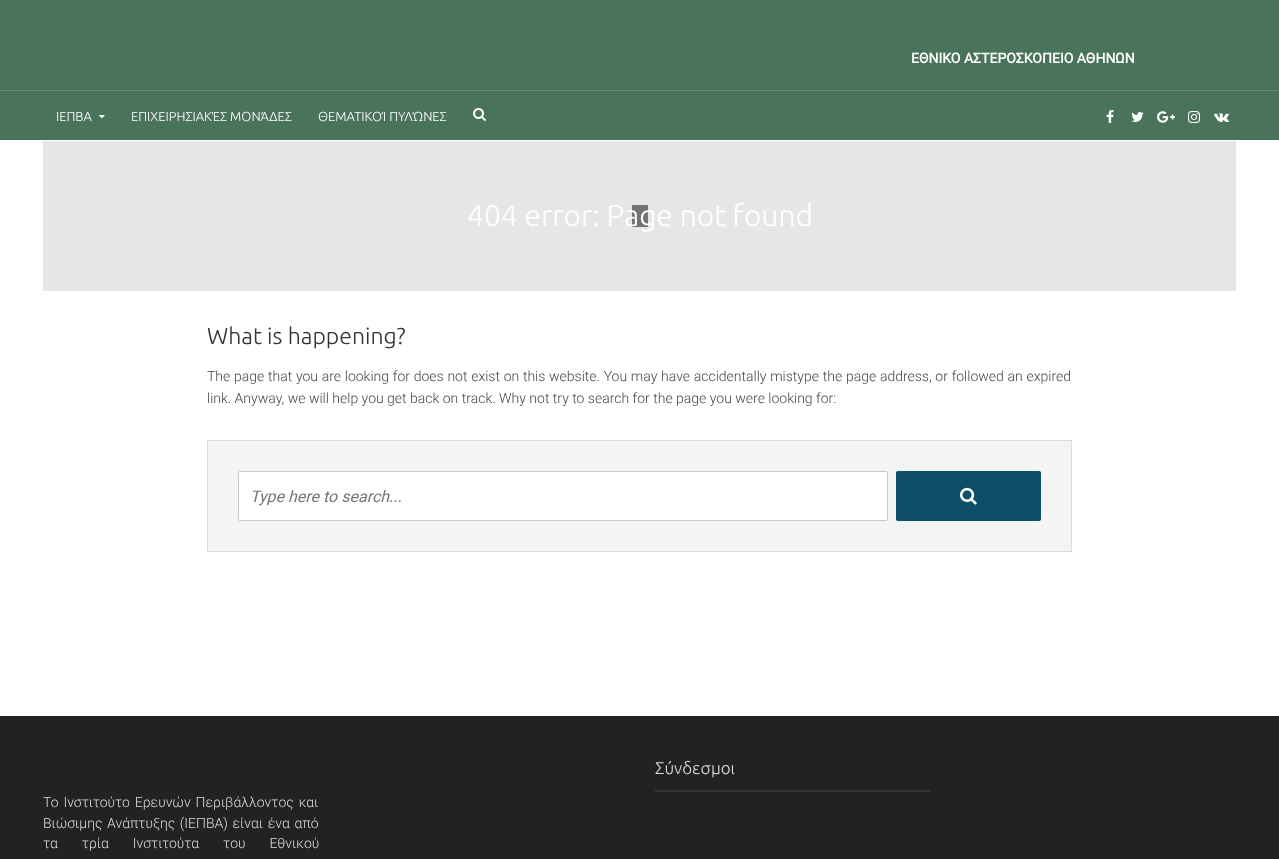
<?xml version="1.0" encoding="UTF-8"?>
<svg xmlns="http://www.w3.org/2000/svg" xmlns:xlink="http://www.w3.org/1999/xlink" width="1279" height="859">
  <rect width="100%" height="100%" fill="#ffffff" />
  <rect width="1279" height="90" fill="#4a735b" />
  <rect y="91" width="1279" height="49" fill="#4a735b" />
  <rect y="90" width="1279" height="1" fill="#658874" />
  <image x="99" y="115" width="6" height="4" xlink:href="image1.png" />
  <image x="473" y="108" width="13" height="13" xlink:href="image2.png" />
  <image x="1106" y="110" width="8" height="13" xlink:href="image3.png" />
  <image x="1131" y="112" width="13" height="10" xlink:href="image4.png" />
  <image x="1157" y="111" width="18" height="12" xlink:href="image5.png" />
  <image x="1188" y="111" width="12" height="12" xlink:href="image6.png" />
  <image x="1214" y="113" width="15" height="9" xlink:href="image7.png" />
  <rect x="43" y="141" width="1193" height="150" fill="#e6e6e6" />
  <rect x="632" y="205" width="16" height="22" fill="#737373" />
  <rect x="207.5" y="440.5" width="864" height="111" fill="#f4f4f4" stroke="#dadada" />
  <rect x="238.5" y="471.5" width="649" height="49" rx="1.5" fill="#ffffff" stroke="#c7c7c7" />
  <rect x="896" y="471" width="145" height="50" rx="2" fill="#0d4e68" />
  <image x="960" y="487" width="17" height="18" xlink:href="image8.png" />
  <rect y="716" width="1279" height="143" fill="#222222" />
  <rect x="655" y="790" width="275" height="2" fill="#353535" />
  <text x="911" y="63" style="font-family: Roboto; font-size: 14px; font-weight: bold; fill: #ffffff">ΕΘΝΙΚΟ ΑΣΤΕΡΟΣΚΟΠΕΙΟ ΑΘΗΝΩΝ</text>
  <text x="56" y="121" style="font-family: Ubuntu; font-size: 13px; font-weight: 300; fill: #ffffff">ΙΕΠΒΑ</text>
  <text x="131" y="121" style="font-family: Ubuntu; font-size: 13px; font-weight: 300; fill: #ffffff">ΕΠΙΧΕΙΡΗΣΙΑΚΈΣ ΜΟΝΆΔΕΣ</text>
  <text x="318" y="121" style="font-family: Ubuntu; font-size: 13px; font-weight: 300; fill: #ffffff">ΘΕΜΑΤΙΚΟΊ ΠΥΛΏΝΕΣ</text>
  <text x="467" y="226" style="font-family: Ubuntu; font-size: 30px; font-weight: 300; fill: #ffffff">404 error: Page not found</text>
  <text x="207" y="344" style="font-family: Ubuntu; font-size: 23px; font-weight: 300; fill: #333333">What is happening?</text>
  <text x="207" y="381" word-spacing="0.3" style="font-family: Roboto; font-size: 14px; font-weight: 300; fill: #444444">The page that you are looking for does not exist on this website. You may have accidentally mistype the page address, or followed an expired</text>
  <text x="207" y="403" style="font-family: Roboto; font-size: 14px; font-weight: 300; fill: #444444">link. Anyway, we will help you get back on track. Why not try to search for the page you were looking for:</text>
  <text x="250" y="502" style="font-family: Roboto; font-size: 16px; font-style: italic; fill: #757575">Type here to search...</text>
  <text x="655" y="774" style="font-family: Ubuntu; font-size: 17px; font-weight: 300; fill: #dddddd">Σύνδεσμοι</text>
  <text x="43" y="807" word-spacing="1.5" style="font-family: Roboto; font-size: 14px; font-weight: 300; fill: #dddddd">Το Ινστιτούτο Ερευνών Περιβάλλοντος και</text>
  <text x="43" y="828" word-spacing="1.25" style="font-family: Roboto; font-size: 14px; font-weight: 300; fill: #dddddd">Βιώσιμης Ανάπτυξης (ΙΕΠΒΑ) είναι ένα από</text>
  <text x="43" y="848" word-spacing="20.5" style="font-family: Roboto; font-size: 14px; font-weight: 300; fill: #dddddd">τα τρία Ινστιτούτα του Εθνικού</text>
</svg>
